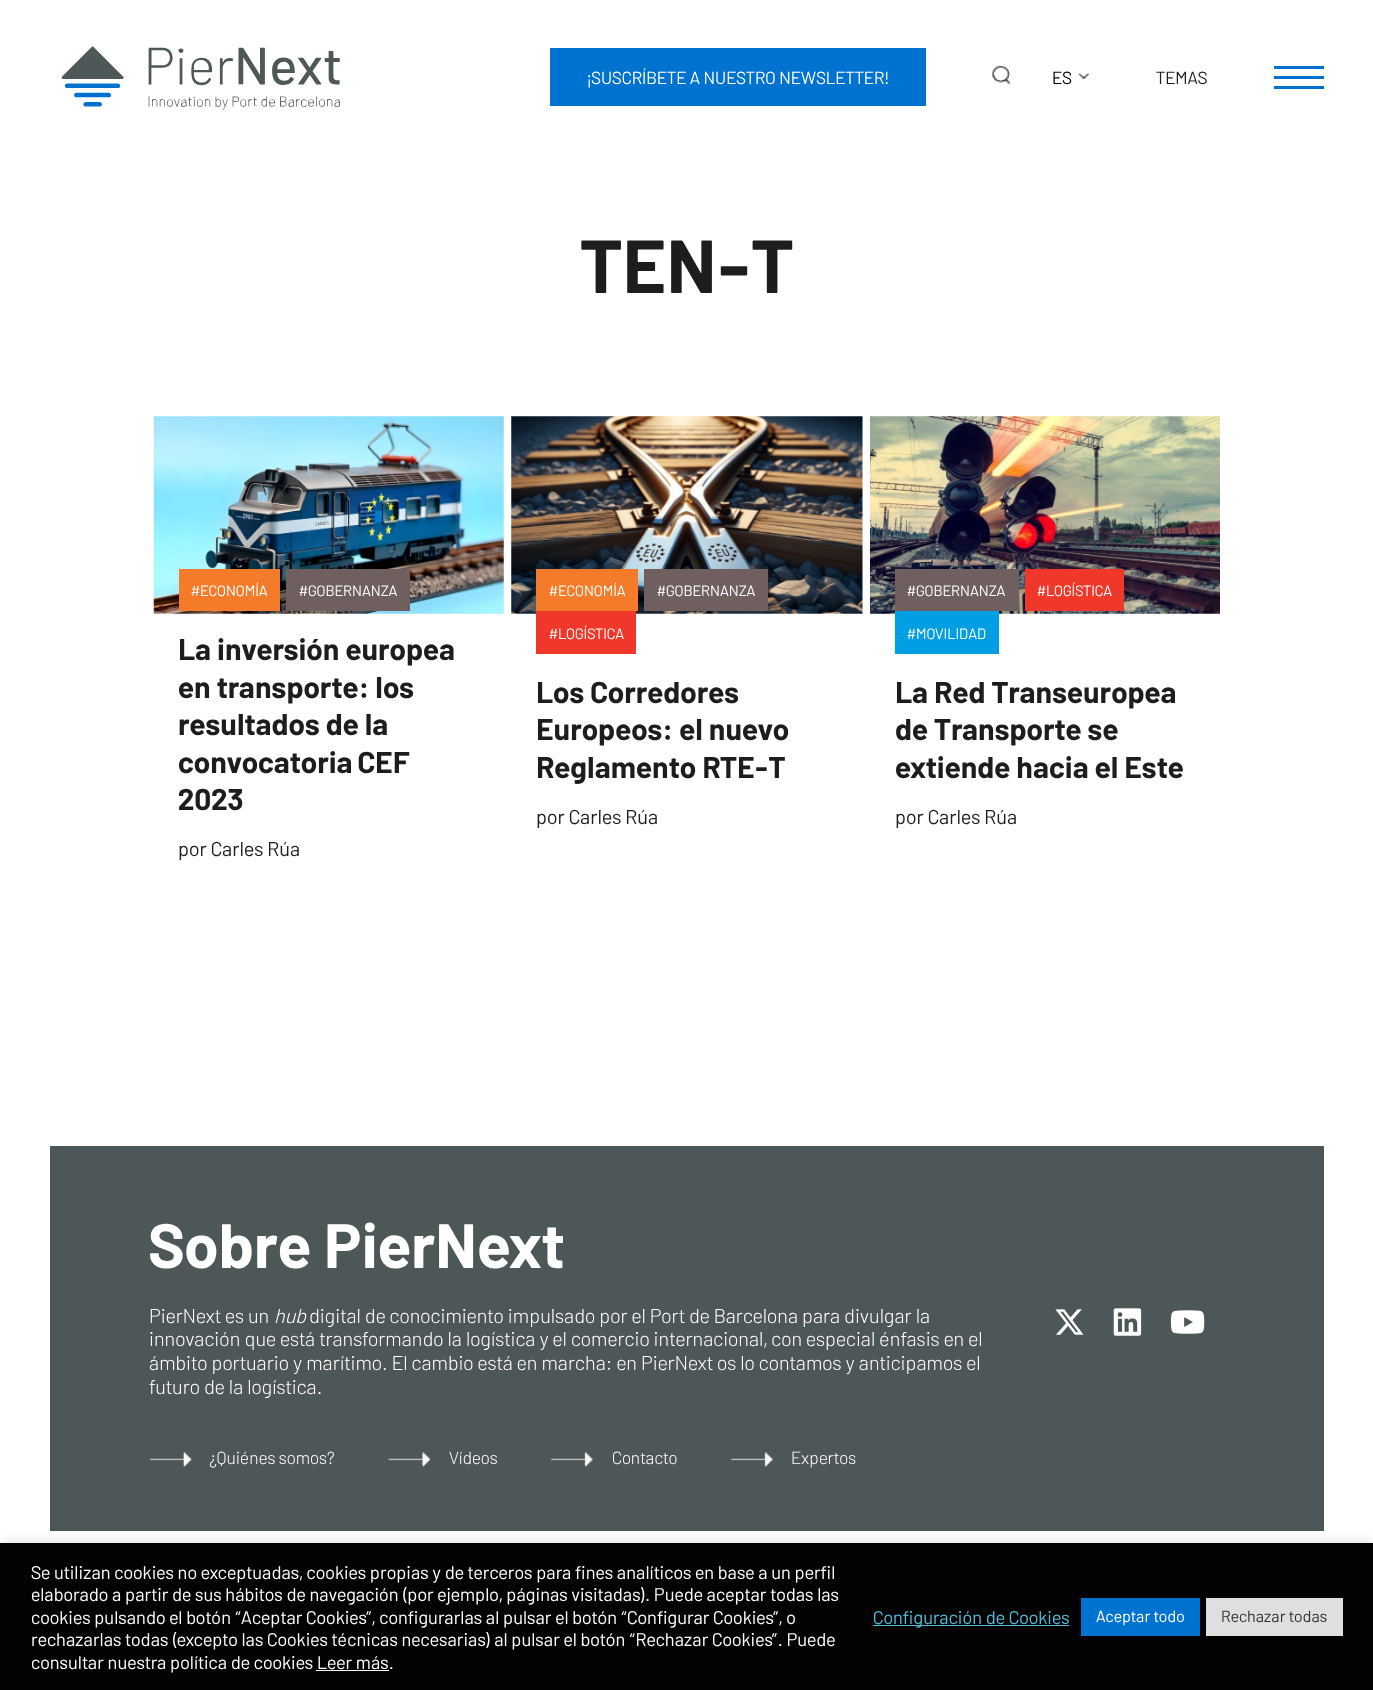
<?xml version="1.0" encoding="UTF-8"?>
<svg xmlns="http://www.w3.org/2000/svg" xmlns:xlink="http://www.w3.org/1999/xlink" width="1373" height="1690">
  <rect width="100%" height="100%" fill="#ffffff" />
  <image x="61" y="46" width="279" height="64" xlink:href="image1.png" />
  <rect x="550" y="48" width="376" height="58" fill="#0072cf" />
  <image x="992" y="66" width="18" height="18" xlink:href="image2.png" />
  <image x="1078" y="73" width="11" height="6" xlink:href="image3.png" />
  <rect x="1274" y="66" width="50" height="3" fill="#0070cd" />
  <rect x="1274" y="76" width="50" height="3" fill="#0070cd" />
  <rect x="1274" y="86" width="50" height="3" fill="#0070cd" />
  <image x="153" y="416" width="351" height="198" xlink:href="image4.png" />
  <rect x="179" y="569" width="101" height="42" fill="#f47b29" />
  <rect x="286" y="569" width="124" height="42" fill="#6f5f5e" />
  <image x="511" y="416" width="352" height="198" xlink:href="image5.png" />
  <rect x="536" y="569" width="102" height="42" fill="#f47b29" />
  <rect x="644" y="569" width="124" height="42" fill="#6f5f5e" />
  <rect x="536" y="611" width="100" height="43" fill="#ef3829" />
  <image x="870" y="416" width="350" height="198" xlink:href="image6.png" />
  <rect x="895" y="569" width="124" height="42" fill="#6f5f5e" />
  <rect x="1025" y="569" width="99" height="42" fill="#ef3829" />
  <rect x="895" y="611" width="104" height="43" fill="#009ee3" />
  <rect x="50" y="1146" width="1274" height="385" fill="#4e5758" />
  <image x="1055" y="1309" width="29" height="26" xlink:href="image7.png" />
  <image x="1113" y="1308" width="29" height="28" xlink:href="image8.png" />
  <image x="1170" y="1310" width="35" height="24" xlink:href="image9.png" />
  <image x="150" y="1452" width="42" height="15" xlink:href="image10.png" />
  <image x="388" y="1452" width="42" height="15" xlink:href="image11.png" />
  <image x="551" y="1452" width="42" height="15" xlink:href="image12.png" />
  <image x="731" y="1452" width="42" height="15" xlink:href="image12.png" />
  <rect y="1541" width="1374" height="148" fill="#acabab" fill-opacity="0.3" filter="blur(6px)" />
  <rect y="1543" width="1373" height="147" fill="#020202" />
  <rect x="316" y="1670" width="73" height="1" fill="#ffffff" />
  <rect x="873" y="1625" width="196" height="1" fill="#51bddb" />
  <rect x="1081" y="1598" width="119" height="38" fill="#0072cf" />
  <rect x="1206" y="1598" width="137" height="38" fill="#dedfe0" />
  <text x="587" y="84" style="font-family: Barlow; font-size: 17.5px; fill: #ffffff">¡SUSCRÍBETE A NUESTRO NEWSLETTER!</text>
  <text x="1052" y="84" style="font-family: Barlow; font-size: 17.5px; fill: #000000">ES</text>
  <text x="1156" y="84" style="font-family: Barlow; font-size: 17.5px; fill: #1d1d1b">TEMAS</text>
  <text x="580" y="293" style="font-family: Barlow; font-size: 75px; font-weight: bold; fill: #1d1d1b">TEN-T</text>
  <text x="191" y="596" style="font-family: Barlow; font-size: 15px; fill: #ffffff">#ECONOMÍA</text>
  <text x="299" y="596" style="font-family: Barlow; font-size: 15px; fill: #ffffff">#GOBERNANZA</text>
  <text x="178" y="660" style="font-family: Barlow; font-size: 30px; font-weight: bold; fill: #1d1d1b">La inversión europea</text>
  <text x="178" y="698" style="font-family: Barlow; font-size: 30px; font-weight: bold; fill: #1d1d1b">en transporte: los</text>
  <text x="178" y="735" style="font-family: Barlow; font-size: 30px; font-weight: bold; fill: #1d1d1b">resultados de la</text>
  <text x="178" y="773" word-spacing="-1" style="font-family: Barlow; font-size: 30px; font-weight: bold; fill: #1d1d1b">convocatoria CEF</text>
  <text x="178" y="810" style="font-family: Barlow; font-size: 30px; font-weight: bold; fill: #1d1d1b">2023</text>
  <text x="178" y="856" style="font-family: Barlow; font-size: 20px; fill: #1d1d1b">por Carles Rúa</text>
  <text x="549" y="596" style="font-family: Barlow; font-size: 15px; fill: #ffffff">#ECONOMÍA</text>
  <text x="657" y="596" style="font-family: Barlow; font-size: 15px; fill: #ffffff">#GOBERNANZA</text>
  <text x="549" y="639" style="font-family: Barlow; font-size: 15px; fill: #ffffff">#LOGÍSTICA</text>
  <text x="536" y="703" style="font-family: Barlow; font-size: 30px; font-weight: bold; fill: #1d1d1b">Los Corredores</text>
  <text x="536" y="740" style="font-family: Barlow; font-size: 30px; font-weight: bold; fill: #1d1d1b">Europeos: el nuevo</text>
  <text x="536" y="778" style="font-family: Barlow; font-size: 30px; font-weight: bold; fill: #1d1d1b">Reglamento RTE-T</text>
  <text x="536" y="824" style="font-family: Barlow; font-size: 20px; fill: #1d1d1b">por Carles Rúa</text>
  <text x="907" y="596" style="font-family: Barlow; font-size: 15px; fill: #ffffff">#GOBERNANZA</text>
  <text x="1037" y="596" style="font-family: Barlow; font-size: 15px; fill: #ffffff">#LOGÍSTICA</text>
  <text x="907" y="639" style="font-family: Barlow; font-size: 15px; fill: #ffffff">#MOVILIDAD</text>
  <text x="895" y="703" style="font-family: Barlow; font-size: 30px; font-weight: bold; fill: #1d1d1b">La Red Transeuropea</text>
  <text x="895" y="740" style="font-family: Barlow; font-size: 30px; font-weight: bold; fill: #1d1d1b">de Transporte se</text>
  <text x="895" y="778" style="font-family: Barlow; font-size: 30px; font-weight: bold; fill: #1d1d1b">extiende hacia el Este</text>
  <text x="895" y="824" style="font-family: Barlow; font-size: 20px; fill: #1d1d1b">por Carles Rúa</text>
  <text x="149" y="1268" style="font-family: Barlow; font-size: 62.5px; font-weight: bold; fill: #ffffff">Sobre PierNext</text>
  <text x="149" y="1323" style="font-family: Barlow; font-size: 20px; font-weight: 300; fill: #ffffff">PierNext es un</text>
  <text x="274" y="1323" style="font-family: Barlow; font-size: 20px; font-weight: 300; font-style: italic; fill: #ffffff">hub</text>
  <text x="309" y="1323" style="font-family: Barlow; font-size: 20px; font-weight: 300; fill: #ffffff">digital de conocimiento impulsado por el Port de Barcelona para divulgar la</text>
  <text x="149" y="1346" style="font-family: Barlow; font-size: 20px; font-weight: 300; fill: #ffffff">innovación que está transformando la logística y el comercio internacional, con especial énfasis en el</text>
  <text x="149" y="1370" style="font-family: Barlow; font-size: 20px; font-weight: 300; fill: #ffffff">ámbito portuario y marítimo. El cambio está en marcha: en PierNext os lo contamos y anticipamos el</text>
  <text x="149" y="1394" style="font-family: Barlow; font-size: 20px; font-weight: 300; fill: #ffffff">futuro de la logística.</text>
  <text x="209" y="1464" style="font-family: Barlow; font-size: 17.5px; font-weight: 300; fill: #ffffff">¿Quiénes somos?</text>
  <text x="449" y="1464" style="font-family: Barlow; font-size: 17.5px; font-weight: 300; fill: #ffffff">Vídeos</text>
  <text x="612" y="1464" style="font-family: Barlow; font-size: 17.5px; font-weight: 300; fill: #ffffff">Contacto</text>
  <text x="791" y="1464" style="font-family: Barlow; font-size: 17.5px; font-weight: 300; fill: #ffffff">Expertos</text>
  <text x="31" y="1579" style="font-family: Barlow; font-size: 18.35px; fill: #ffffff">Se utilizan cookies no exceptuadas, cookies propias y de terceros para fines analíticos en base a un perfil</text>
  <text x="31" y="1601" style="font-family: Barlow; font-size: 18.35px; fill: #ffffff">elaborado a partir de sus hábitos de navegación (por ejemplo, páginas visitadas). Puede aceptar todas las</text>
  <text x="31" y="1624" style="font-family: Barlow; font-size: 18.35px; fill: #ffffff">cookies pulsando el botón “Aceptar Cookies”, configurarlas al pulsar el botón “Configurar Cookies”, o</text>
  <text x="31" y="1646" style="font-family: Barlow; font-size: 18.35px; fill: #ffffff">rechazarlas todas (excepto las Cookies técnicas necesarias) al pulsar el botón “Rechazar Cookies”. Puede</text>
  <text x="31" y="1669" style="font-family: Barlow; font-size: 18.35px; fill: #ffffff">consultar nuestra política de cookies Leer más.</text>
  <text x="873" y="1624" style="font-family: Barlow; font-size: 18.35px; fill: #51bddb">Configuración de Cookies</text>
  <text x="1096" y="1622" style="font-family: Barlow; font-size: 16.25px; fill: #ffffff">Aceptar todo</text>
  <text x="1221" y="1622" style="font-family: Barlow; font-size: 16.25px; fill: #333333">Rechazar todas</text>
</svg>
